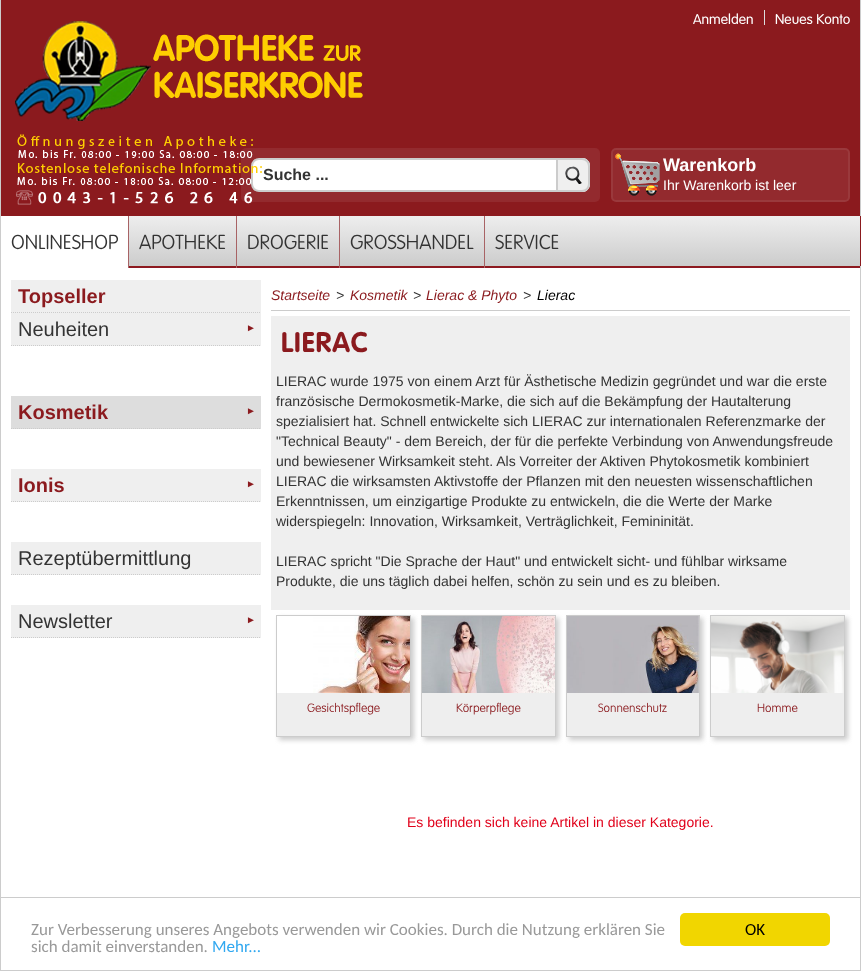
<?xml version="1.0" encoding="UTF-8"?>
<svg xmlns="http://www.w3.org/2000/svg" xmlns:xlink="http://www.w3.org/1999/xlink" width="861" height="971">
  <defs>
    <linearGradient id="g1" gradientUnits="userSpaceOnUse" x1="431" y1="216" x2="431" y2="266"><stop offset="0" stop-color="#eeeeee" /><stop offset="1" stop-color="#cccccc" /></linearGradient>
    <clipPath id="clip1"><path d="M 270 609 h 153 v 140 h -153 z m 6 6 h 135 v 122 h -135 z" clip-rule="evenodd" /></clipPath>
  </defs>
  <rect width="100%" height="100%" fill="#ffffff" />
  <image x="1" y="0" width="859" height="268" xlink:href="image1.png" />
  <rect x="764" y="10" width="1" height="15" fill="#dddddd" />
  <image x="15" y="21" width="348" height="100" xlink:href="image2.png" />
  <rect x="241" y="148" width="359" height="54" rx="5" fill="#932a2e" />
  <rect x="252" y="159" width="337" height="32" rx="7" fill="#ffffff" stroke="#cccccc" stroke-width="2" />
  <image x="16" y="134" width="246" height="71" xlink:href="image3.png" />
  <path d="M 556 158 h 26 c 4.5 0 8 3.5 8 8 v 18 c 0 4.5 -3.5 8 -8 8 h -26 z" fill="#efefef" />
  <image x="565" y="166" width="17" height="18" xlink:href="image4.png" />
  <path d="M 557 159 h 25 c 4 0 7 3 7 7 v 18 c 0 4 -3 7 -7 7 h -25 z" fill="none" stroke="#cccccc" stroke-width="2" />
  <rect x="129" y="216" width="731" height="50" fill="url(#g1)" />
  <rect x="860" width="1" height="897" fill="#cccccc" />
  <rect x="860" y="216" width="1" height="50" fill="#8b1a1e" />
  <rect x="1" y="216" width="127" height="52" fill="#ffffff" />
  <rect x="128" y="216" width="1" height="52" fill="#a86365" />
  <rect x="236" y="216" width="1" height="52" fill="#a86365" />
  <rect x="339" y="216" width="1" height="52" fill="#a86365" />
  <rect x="484" y="216" width="1" height="52" fill="#a86365" />
  <rect x="611" y="148" width="239" height="54" rx="5" fill="#932a2e" />
  <image x="615" y="153" width="45" height="43" xlink:href="image5.png" />
  <rect x="612" y="149" width="237" height="52" rx="4" fill="none" stroke="#ffffff" stroke-opacity="0.07" stroke-width="2" />
  <rect width="1" height="897" fill="#cccccc" />
  <rect x="11" y="280" width="250" height="66" fill="#efefef" />
  <path d="M 11 312.5 h 250" fill="none" stroke="#cccccc" stroke-dasharray="1 1" />
  <path d="M 11 345.5 h 250" fill="none" stroke="#cccccc" stroke-dasharray="1 1" />
  <rect x="11" y="396" width="250" height="33" fill="#dddddd" />
  <path d="M 11 428.5 h 250" fill="none" stroke="#cccccc" stroke-dasharray="1 1" />
  <rect x="11" y="469" width="250" height="33" fill="#efefef" />
  <path d="M 11 501.5 h 250" fill="none" stroke="#cccccc" stroke-dasharray="1 1" />
  <rect x="11" y="542" width="250" height="33" fill="#efefef" />
  <path d="M 11 574.5 h 250" fill="none" stroke="#cccccc" stroke-dasharray="1 1" />
  <rect x="11" y="605" width="250" height="33" fill="#efefef" />
  <path d="M 11 637.5 h 250" fill="none" stroke="#cccccc" stroke-dasharray="1 1" />
  <rect x="271" y="310" width="579" height="1" fill="#cccccc" />
  <rect x="271" y="316" width="579" height="294" fill="#efefef" />
  <g clip-path="url(#clip1)">
    <rect x="279" y="618" width="135" height="122" fill="#cccccc" filter="blur(2.5px)" />
  </g>
  <rect x="276.5" y="615.5" width="134" height="121" fill="none" stroke="#cccccc" />
  <image x="313" y="616" width="97" height="77" xlink:href="image6.png" />
  <rect x="277" y="693" width="133" height="43" fill="#eeeeee" />
  <rect x="424" y="618" width="135" height="122" fill="#cccccc" filter="blur(2.5px)" />
  <rect x="421.5" y="615.5" width="134" height="121" fill="none" stroke="#cccccc" />
  <image x="422" y="616" width="133" height="77" xlink:href="image7.png" />
  <rect x="422" y="693" width="133" height="43" fill="#eeeeee" />
  <rect x="569" y="618" width="134" height="122" fill="#cccccc" filter="blur(2.5px)" />
  <rect x="566.5" y="615.5" width="133" height="121" fill="none" stroke="#cccccc" />
  <image x="567" y="616" width="132" height="77" xlink:href="image8.png" />
  <rect x="567" y="693" width="132" height="43" fill="#eeeeee" />
  <rect x="713" y="618" width="135" height="122" fill="#cccccc" filter="blur(2.5px)" />
  <rect x="710.5" y="615.5" width="134" height="121" fill="none" stroke="#cccccc" />
  <image x="711" y="616" width="133" height="77" xlink:href="image9.png" />
  <rect x="711" y="693" width="133" height="43" fill="#eeeeee" />
  <rect x="0.5" y="897.5" width="860" height="73" fill="none" stroke="#cccccc" />
  <rect x="680" y="913" width="150" height="33" rx="5" fill="#f1d600" />
  <text x="693" y="24" style="font-family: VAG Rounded; font-size: 14px; font-weight: 300; fill: #ffffff">Anmelden</text>
  <text x="775" y="24" style="font-family: VAG Rounded; font-size: 14px; font-weight: 300; fill: #ffffff">Neues Konto</text>
  <text x="263" y="180" style="font-family: Liberation Sans; font-size: 16px; font-weight: bold; fill: #333333">Suche ...</text>
  <text x="11" y="249" style="font-family: VAG Rounded; font-size: 20px; font-weight: 100; fill: #333333">ONLINESHOP</text>
  <text x="139" y="249" style="font-family: VAG Rounded; font-size: 20px; font-weight: 100; fill: #333333">APOTHEKE</text>
  <text x="247" y="249" style="font-family: VAG Rounded; font-size: 20px; font-weight: 100; fill: #333333">DROGERIE</text>
  <text x="350" y="249" style="font-family: VAG Rounded; font-size: 20px; font-weight: 100; fill: #333333">GROSSHANDEL</text>
  <text x="495" y="249" style="font-family: VAG Rounded; font-size: 20px; font-weight: 100; fill: #333333">SERVICE</text>
  <text x="663" y="171" style="font-family: Liberation Sans; font-size: 18px; font-weight: bold; fill: #ffffff">Warenkorb</text>
  <text x="663" y="190" style="font-family: Liberation Sans; font-size: 14px; fill: #ffffff">Ihr Warenkorb ist leer</text>
  <text x="18" y="303" style="font-family: Liberation Sans; font-size: 20px; font-weight: bold; fill: #8b1a1e">Topseller</text>
  <text x="18" y="336" style="font-family: Liberation Sans; font-size: 20px; fill: #333333">Neuheiten</text>
  <text x="246" y="331" style="font-family: Liberation Sans; font-size: 10px; fill: #8b1a1e">►</text>
  <text x="18" y="419" style="font-family: Liberation Sans; font-size: 20px; font-weight: bold; fill: #8b1a1e">Kosmetik</text>
  <text x="246" y="414" style="font-family: Liberation Sans; font-size: 10px; fill: #8b1a1e">►</text>
  <text x="18" y="492" style="font-family: Liberation Sans; font-size: 20px; font-weight: bold; fill: #8b1a1e">Ionis</text>
  <text x="246" y="487" style="font-family: Liberation Sans; font-size: 10px; fill: #8b1a1e">►</text>
  <text x="18" y="565" style="font-family: Liberation Sans; font-size: 20px; fill: #333333">Rezeptübermittlung</text>
  <text x="18" y="628" style="font-family: Liberation Sans; font-size: 20px; fill: #333333">Newsletter</text>
  <text x="246" y="623" style="font-family: Liberation Sans; font-size: 10px; fill: #8b1a1e">►</text>
  <text x="271" y="300" style="font-family: Liberation Sans; font-size: 14px; font-style: italic; fill: #8b1a1e">Startseite</text>
  <text x="336" y="300" style="font-family: Liberation Sans; font-size: 14px; font-style: italic; fill: #333333">&gt;</text>
  <text x="350" y="300" style="font-family: Liberation Sans; font-size: 14px; font-style: italic; fill: #8b1a1e">Kosmetik</text>
  <text x="413" y="300" style="font-family: Liberation Sans; font-size: 14px; font-style: italic; fill: #333333">&gt;</text>
  <text x="426" y="300" style="font-family: Liberation Sans; font-size: 14px; font-style: italic; fill: #8b1a1e">Lierac &amp; Phyto</text>
  <text x="523" y="300" style="font-family: Liberation Sans; font-size: 14px; font-style: italic; fill: #333333">&gt;</text>
  <text x="537" y="300" style="font-family: Liberation Sans; font-size: 14px; font-style: italic; fill: #000000">Lierac</text>
  <text x="281" y="352" style="font-family: VAG Rounded; font-size: 28px; font-weight: bold; letter-spacing: 1px; fill: #8b1a1e">LIERAC</text>
  <text x="276" y="386" style="font-family: Liberation Sans; font-size: 14px; fill: #333333">LIERAC wurde 1975 von einem Arzt für Ästhetische Medizin gegründet und war die erste</text>
  <text x="276" y="406" style="font-family: Liberation Sans; font-size: 14px; fill: #333333">französische Dermokosmetik-Marke, die sich auf die Bekämpfung der Hautalterung</text>
  <text x="276" y="426" style="font-family: Liberation Sans; font-size: 14px; fill: #333333">spezialisiert hat. Schnell entwickelte sich LIERAC zur internationalen Referenzmarke der</text>
  <text x="276" y="446" style="font-family: Liberation Sans; font-size: 14px; fill: #333333">"Technical Beauty" - dem Bereich, der für die perfekte Verbindung von Anwendungsfreude</text>
  <text x="276" y="466" style="font-family: Liberation Sans; font-size: 14px; fill: #333333">und bewiesener Wirksamkeit steht. Als Vorreiter der Aktiven Phytokosmetik kombiniert</text>
  <text x="276" y="486" style="font-family: Liberation Sans; font-size: 14px; fill: #333333">LIERAC die wirksamsten Aktivstoffe der Pflanzen mit den neuesten wissenschaftlichen</text>
  <text x="276" y="506" style="font-family: Liberation Sans; font-size: 14px; fill: #333333">Erkenntnissen, um einzigartige Produkte zu entwickeln, die die Werte der Marke</text>
  <text x="276" y="526" style="font-family: Liberation Sans; font-size: 14px; fill: #333333">widerspiegeln: Innovation, Wirksamkeit, Verträglichkeit, Femininität.</text>
  <text x="276" y="566" style="font-family: Liberation Sans; font-size: 14px; fill: #333333">LIERAC spricht "Die Sprache der Haut" und entwickelt sicht- und fühlbar wirksame</text>
  <text x="276" y="586" style="font-family: Liberation Sans; font-size: 14px; fill: #333333">Produkte, die uns täglich dabei helfen, schön zu sein und es zu bleiben.</text>
  <text x="307" y="712" style="font-family: VAG Rounded; font-size: 12px; font-weight: 100; fill: #8b1a1e">Gesichtspflege</text>
  <text x="456" y="712" style="font-family: VAG Rounded; font-size: 12px; font-weight: 100; fill: #8b1a1e">Körperpflege</text>
  <text x="598" y="712" style="font-family: VAG Rounded; font-size: 12px; font-weight: 100; fill: #8b1a1e">Sonnenschutz</text>
  <text x="757" y="712" style="font-family: VAG Rounded; font-size: 12px; font-weight: 100; fill: #8b1a1e">Homme</text>
  <text x="407" y="827" style="font-family: Liberation Sans; font-size: 14px; fill: #e1001a">Es befinden sich keine Artikel in dieser Kategorie.</text>
  <text x="31" y="935" style="font-family: Carlito; font-size: 17px; fill: #999999">Zur Verbesserung unseres Angebots verwenden wir Cookies. Durch die Nutzung erklären Sie</text>
  <text x="31" y="952" style="font-family: Carlito; font-size: 17px; fill: #999999">sich damit einverstanden.</text>
  <text x="212" y="952" style="font-family: Carlito; font-size: 17px; fill: #31a8f0">Mehr...</text>
  <text x="745" y="935" style="font-family: Carlito; font-size: 17px; fill: #000000">OK</text>
</svg>
